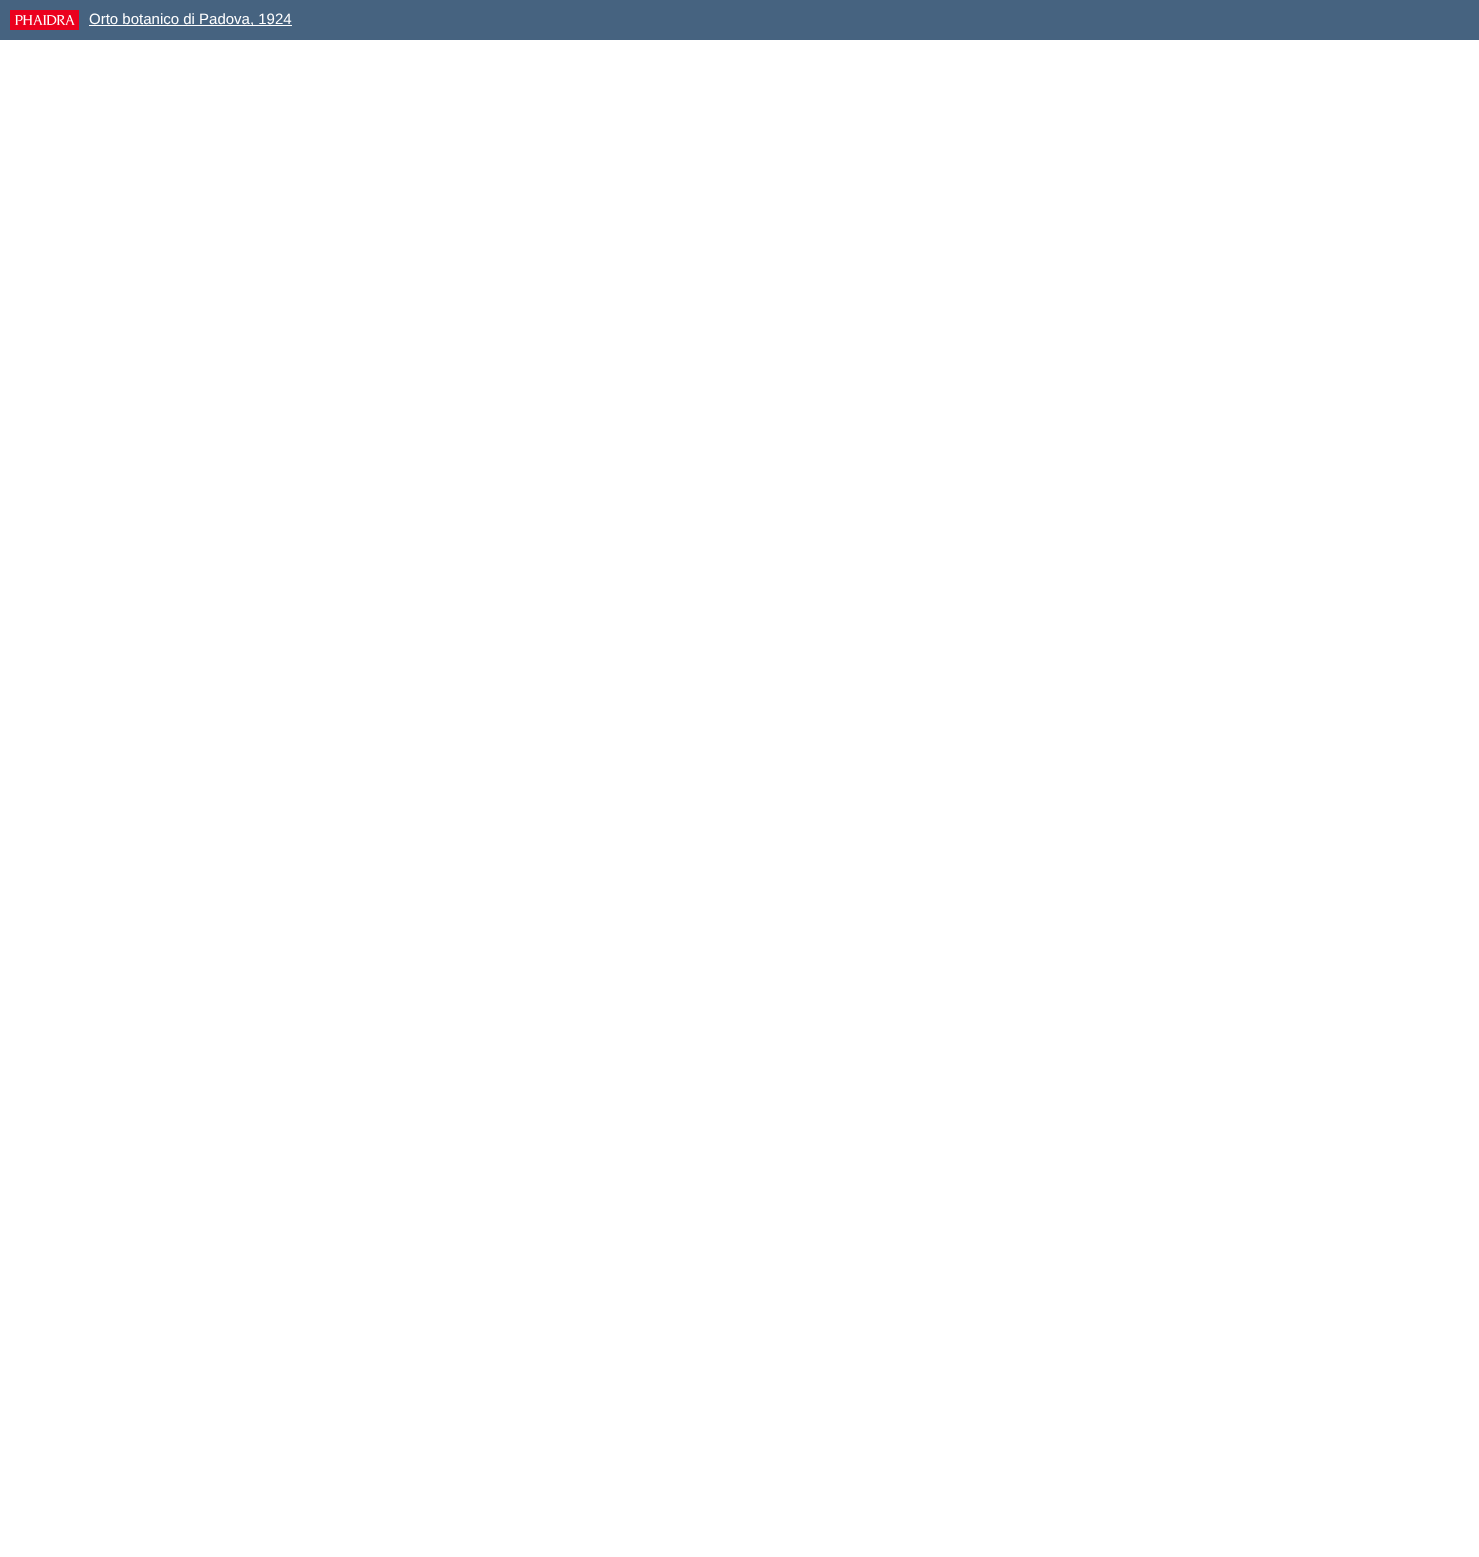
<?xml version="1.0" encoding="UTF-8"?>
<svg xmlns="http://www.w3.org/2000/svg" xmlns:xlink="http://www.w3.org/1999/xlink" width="1479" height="1557">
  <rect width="100%" height="100%" fill="#ffffff" />
  <rect width="1479" height="40" fill="#466380" />
  <image x="10" y="10" width="69" height="20" xlink:href="image1.png" />
  <rect x="89" y="25" width="203" height="1" fill="#ffffff" />
  <text x="89" y="24" style="font-family: Liberation Sans; font-size: 15px; fill: #ffffff">Orto botanico di Padova, 1924</text>
</svg>
